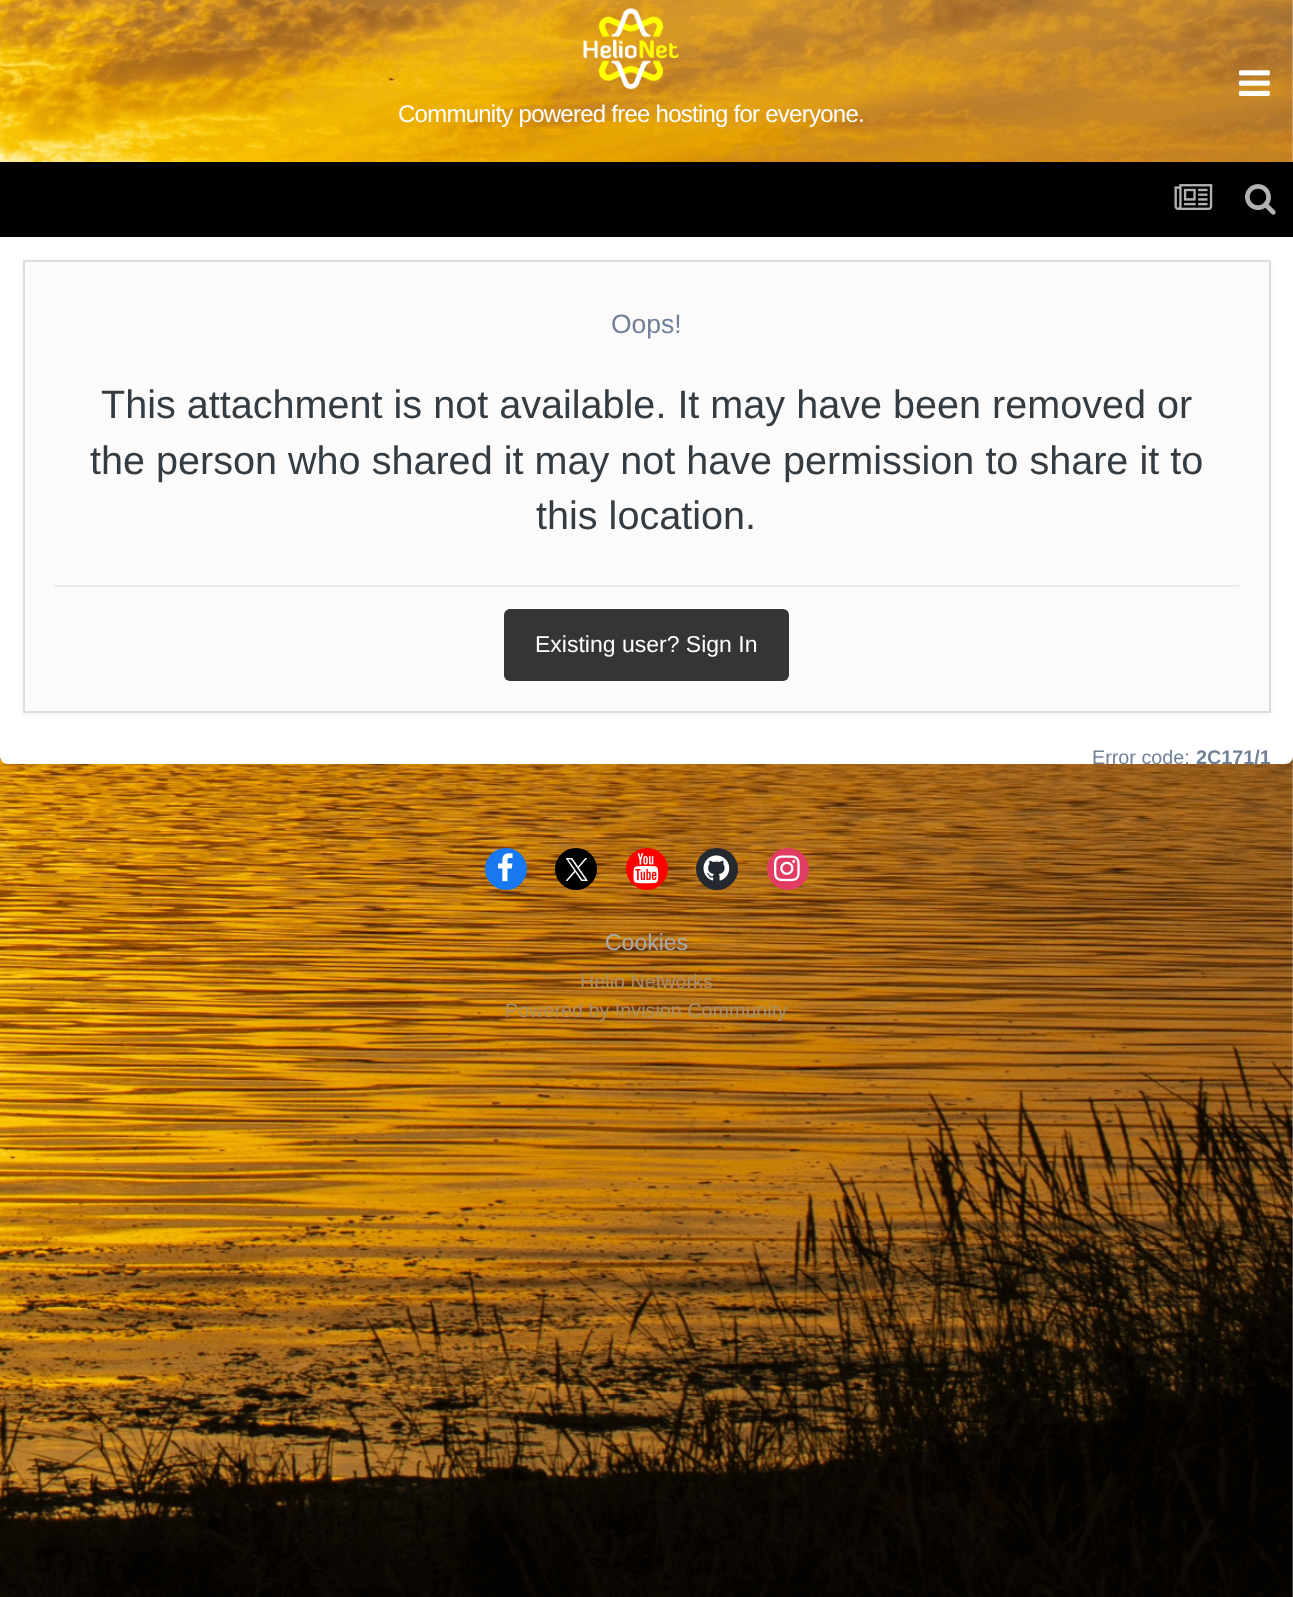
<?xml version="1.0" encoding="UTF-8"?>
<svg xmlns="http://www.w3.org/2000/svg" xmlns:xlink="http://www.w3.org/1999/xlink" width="1293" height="1597">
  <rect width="100%" height="100%" fill="#ffffff" />
  <image x="0" y="0" width="1293" height="1597" xlink:href="image1.png" />
  <image x="1239" y="70" width="31" height="26" xlink:href="image2.png" />
  <image x="583" y="8" width="96" height="82" xlink:href="image3.png" />
  <rect y="162" width="1293" height="75" fill="#000000" />
  <image x="1174" y="184" width="39" height="26" xlink:href="image4.png" />
  <image x="1245" y="184" width="31" height="31" xlink:href="image5.png" />
  <path d="M 0 237 h 1293 v 519 c 0 4.5 -3.5 8 -8 8 h -1277 c -4.5 0 -8 -3.5 -8 -8 z" fill="#ffffff" />
  <rect x="24" y="264" width="1245" height="450" fill="#363533" fill-opacity="0.1" filter="blur(3px)" />
  <rect x="25" y="263" width="1244" height="448" fill="#fbfbfb" />
  <rect x="24" y="261" width="1246" height="451" fill="none" stroke="#dddddd" stroke-width="2" />
  <rect x="54" y="585" width="1185" height="2" fill="#ebecec" />
  <rect x="504" y="609" width="285" height="72" rx="6" fill="#363533" />
  <circle cx="506" cy="869" r="21" fill="#1778f2" />
  <image x="498" y="853" width="15" height="29" xlink:href="image6.png" />
  <circle cx="576" cy="869" r="21" fill="#000000" />
  <image x="566" y="858" width="22" height="23" xlink:href="image7.png" />
  <circle cx="647" cy="869" r="21" fill="#ff0000" />
  <image x="633" y="853" width="26" height="31" xlink:href="image8.png" />
  <circle cx="717" cy="869" r="21" fill="#24292f" />
  <image x="703" y="855" width="27" height="26" xlink:href="image9.png" />
  <circle cx="788" cy="869" r="21" fill="#e13d62" />
  <image x="774" y="855" width="26" height="27" xlink:href="image10.png" />
  <text x="398" y="122" style="font-family: Liberation Sans; font-size: 24px; letter-spacing: -0.75px; fill: #ffffff">Community powered free hosting for everyone.</text>
  <text x="611" y="333" style="font-family: Liberation Sans; font-size: 26.5px; fill: #718096">Oops!</text>
  <text x="101" y="418" style="font-family: Liberation Sans; font-size: 39.6px; fill: #353c41">This attachment is not available. It may have been removed or</text>
  <text x="90" y="474" style="font-family: Liberation Sans; font-size: 39.6px; fill: #353c41">the person who shared it may not have permission to share it to</text>
  <text x="536" y="529" style="font-family: Liberation Sans; font-size: 39.6px; fill: #353c41">this location.</text>
  <text x="535" y="652" style="font-family: Liberation Sans; font-size: 23px; fill: #ffffff">Existing user? Sign In</text>
  <text x="1092" y="764" style="font-family: Liberation Sans; font-size: 19.75px; fill: #718096">Error code:</text>
  <text x="1196" y="764" style="font-family: Liberation Sans; font-size: 19.75px; font-weight: bold; fill: #718096">2C171/1</text>
  <text x="605" y="950" style="font-family: Liberation Sans; font-size: 23px; fill: #aaaaaa">Cookies</text>
  <text x="580" y="988" style="font-family: Liberation Sans; font-size: 19.75px; fill: #a98e6b">Helio Networks</text>
  <text x="505" y="1017" style="font-family: Liberation Sans; font-size: 19.75px; fill: #a98e6b">Powered by Invision Community</text>
</svg>
